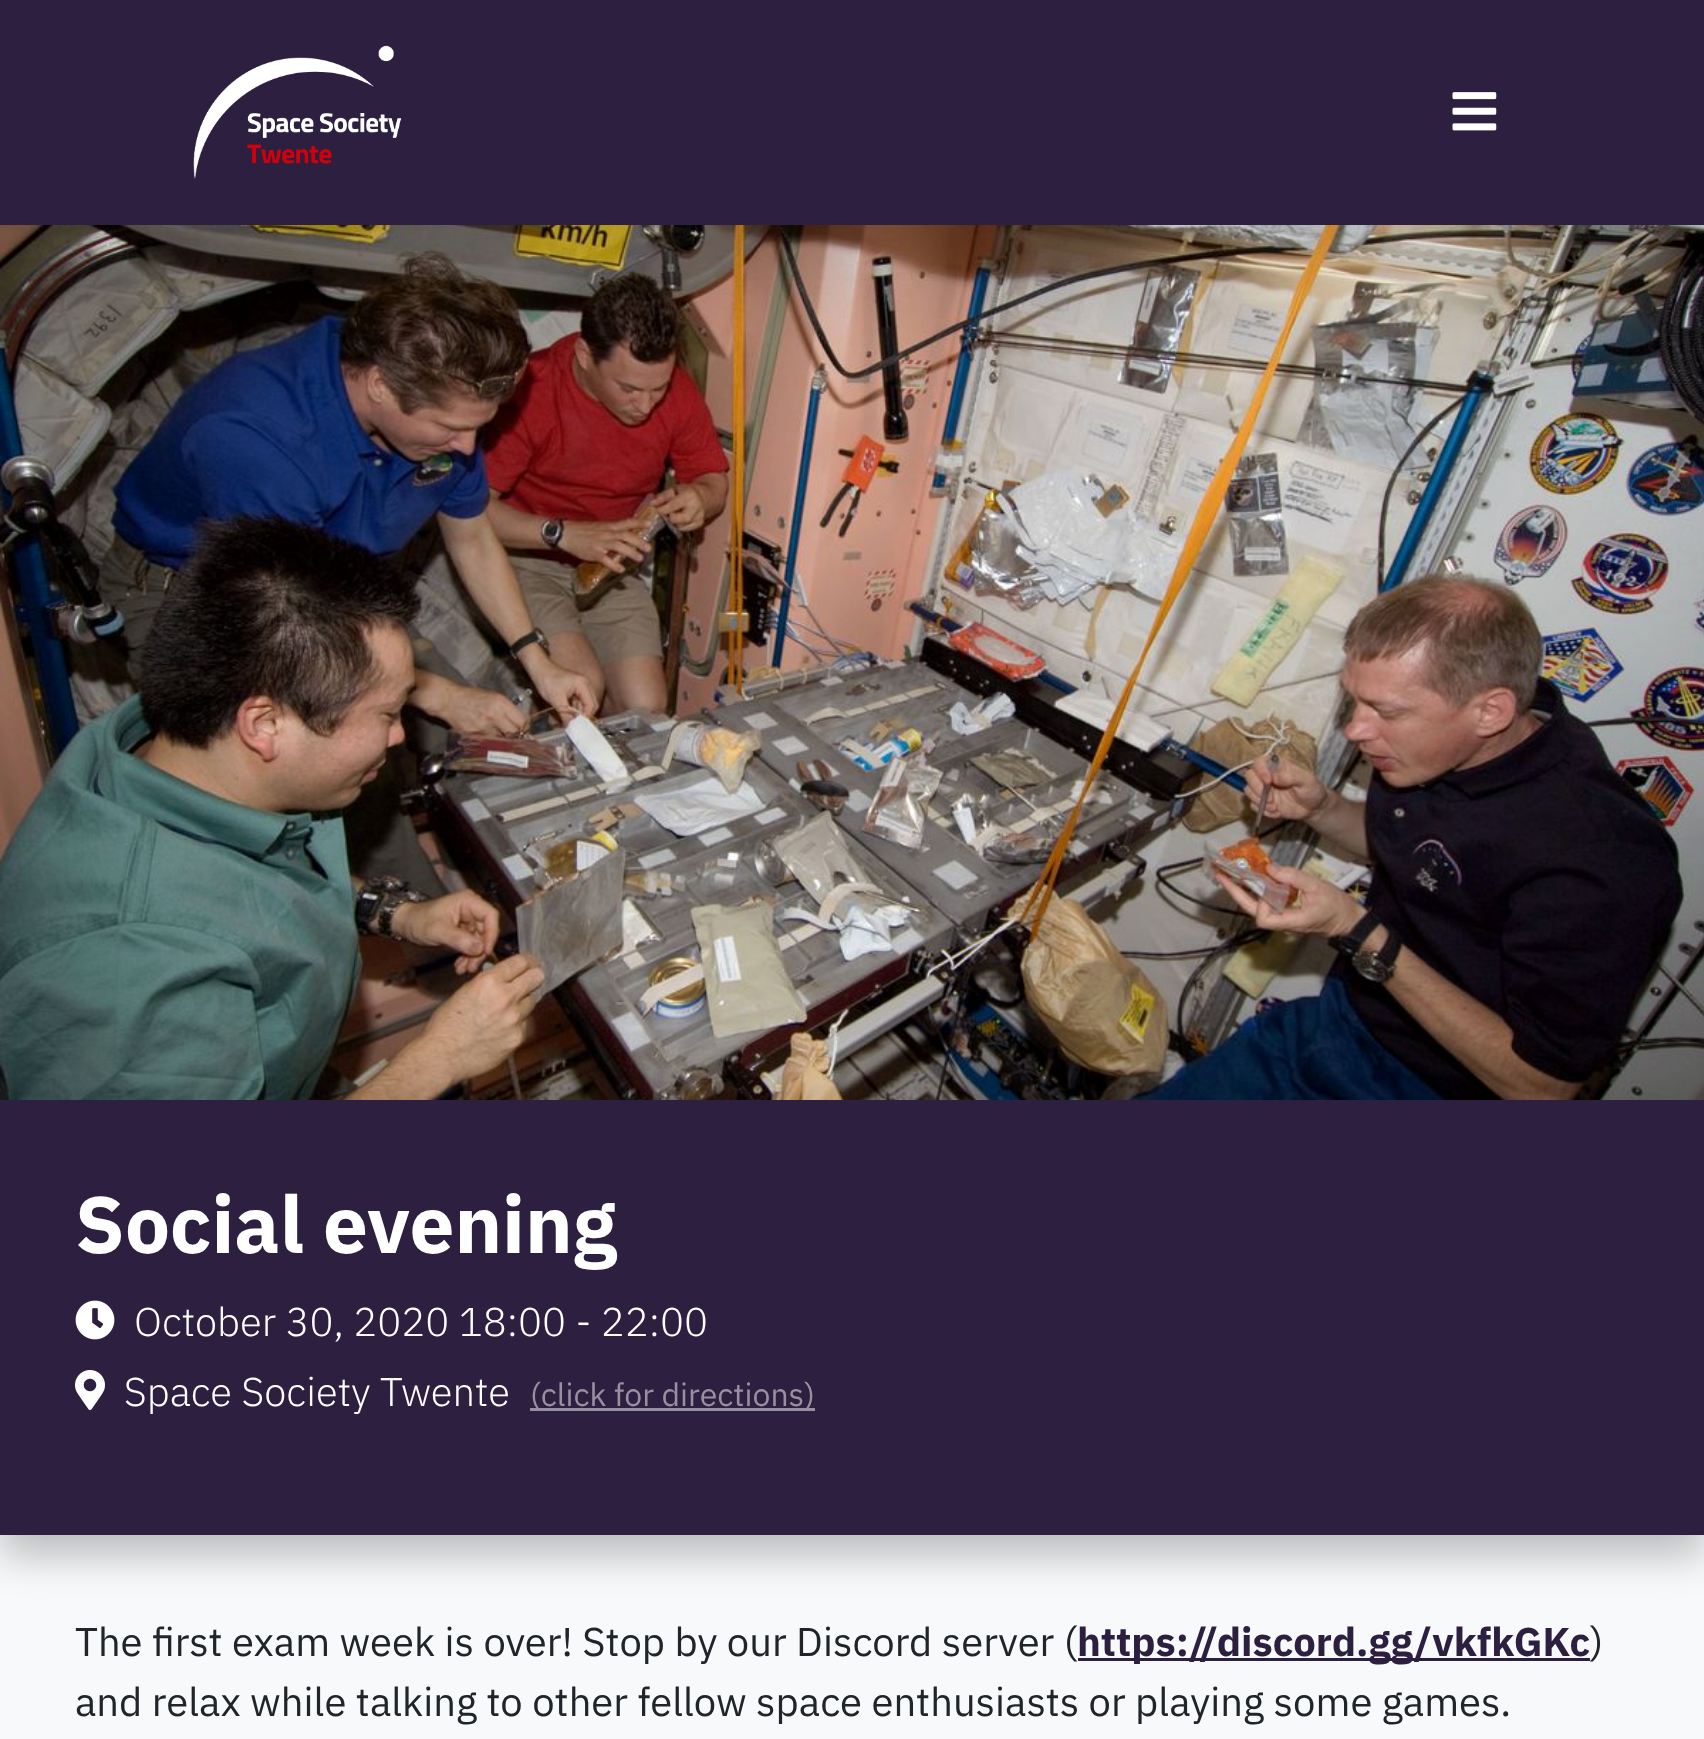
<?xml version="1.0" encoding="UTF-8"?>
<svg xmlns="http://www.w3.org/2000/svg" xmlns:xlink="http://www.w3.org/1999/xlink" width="1704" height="1739">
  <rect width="100%" height="100%" fill="#f8f9fa" />
  <image x="0" y="225" width="1704" height="875" xlink:href="image3.png" />
  <rect y="40" width="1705" height="225" fill="#000000" fill-opacity="0.18" filter="blur(60px)" />
  <rect width="1704" height="225" fill="#2c1f40" />
  <image x="193" y="45" width="209" height="135" xlink:href="image1.png" />
  <image x="1452" y="92" width="45" height="39" xlink:href="image2.png" />
  <rect y="1120" width="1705" height="435" fill="#000000" fill-opacity="0.25" filter="blur(20px)" />
  <rect y="1100" width="1704" height="435" fill="#2c1f40" />
  <image x="75" y="1300" width="40" height="40" xlink:href="image4.png" />
  <image x="75" y="1370" width="30" height="40" xlink:href="image5.png" />
  <rect x="530" y="1408" width="285" height="3" fill="#968fa0" />
  <rect x="1078" y="1658" width="512" height="3" fill="#2c1f40" />
  <text x="75" y="1253" style="font-family: IBM Plex Sans; font-size: 80px; font-weight: bold; fill: #ffffff">Social evening</text>
  <text x="134" y="1336" style="font-family: IBM Plex Sans; font-size: 40px; font-weight: 300; fill: #ffffff">October 30, 2020 18:00 - 22:00</text>
  <text x="124" y="1406" style="font-family: IBM Plex Sans; font-size: 40px; font-weight: 300; fill: #ffffff">Space Society Twente</text>
  <text x="530" y="1406" style="font-family: IBM Plex Sans; font-size: 32px; fill: #9690a0">(click for directions)</text>
  <text x="75" y="1656" style="font-family: IBM Plex Sans; font-size: 40px; fill: #212529">The first exam week is over! Stop by our Discord server (</text>
  <text x="1077" y="1656" style="font-family: IBM Plex Sans; font-size: 40px; font-weight: bold; fill: #2c1f40">https://discord.gg/vkfkGKc</text>
  <text x="1590" y="1656" style="font-family: IBM Plex Sans; font-size: 40px; fill: #212529">)</text>
  <text x="75" y="1716" style="font-family: IBM Plex Sans; font-size: 40px; fill: #212529">and relax while talking to other fellow space enthusiasts or playing some games.</text>
</svg>
